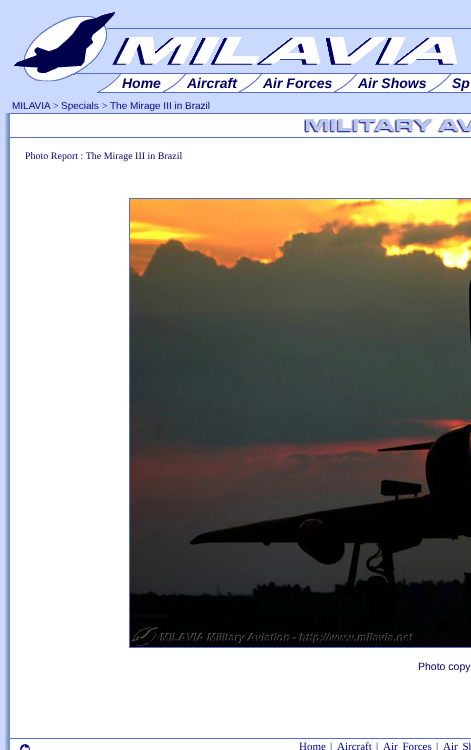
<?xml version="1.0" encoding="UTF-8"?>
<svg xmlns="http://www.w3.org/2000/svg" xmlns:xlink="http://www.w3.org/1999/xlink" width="471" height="750">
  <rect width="100%" height="100%" fill="#c9dafe" />
  <image x="14" y="12" width="443" height="70" xlink:href="image1.png" />
  <rect x="107" y="28" width="364" height="1" fill="#556ccc" />
  <rect x="75" y="73" width="396" height="1" fill="#556ccc" />
  <image x="97" y="74" width="25" height="19" xlink:href="image2.png" />
  <rect x="122" y="74" width="62" height="18" fill="#ffffff" />
  <rect x="122" y="92" width="349" height="1" fill="#556ccc" />
  <image x="162" y="74" width="25" height="18" xlink:href="image3.png" />
  <rect x="187" y="74" width="73" height="18" fill="#ffffff" />
  <image x="238" y="74" width="25" height="18" xlink:href="image3.png" />
  <rect x="263" y="74" width="92" height="18" fill="#ffffff" />
  <image x="333" y="74" width="25" height="18" xlink:href="image3.png" />
  <rect x="358" y="74" width="91" height="18" fill="#ffffff" />
  <image x="427" y="74" width="25" height="18" xlink:href="image3.png" />
  <rect x="452" y="74" width="19" height="18" fill="#ffffff" />
  <rect x="11" y="138" width="460" height="600" fill="#ffffff" />
  <image x="5" y="113" width="6" height="637" xlink:href="image4.png" />
  <rect x="10" y="114" width="461" height="23" fill="#ffffff" />
  <rect x="10" y="113" width="461" height="1" fill="#556ccc" />
  <rect x="10" y="137" width="461" height="1" fill="#556ccc" />
  <image x="304" y="119" width="167" height="14" xlink:href="image5.png" />
  <rect x="129.5" y="198.5" width="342" height="449" fill="none" stroke="#556ccc" />
  <image x="130" y="199" width="341" height="448" xlink:href="image6.png" />
  <image x="6" y="738" width="465" height="12" xlink:href="image7.png" />
  <image x="20" y="744" width="10" height="6" xlink:href="image8.png" />
  <text x="122" y="88" style="font-family: Liberation Sans; font-size: 14px; font-weight: bold; font-style: italic; fill: #000066">Home</text>
  <text x="187" y="88" style="font-family: Liberation Sans; font-size: 14px; font-weight: bold; font-style: italic; fill: #000066">Aircraft</text>
  <text x="263" y="88" style="font-family: Liberation Sans; font-size: 14px; font-weight: bold; font-style: italic; fill: #000066">Air Forces</text>
  <text x="358" y="88" style="font-family: Liberation Sans; font-size: 14px; font-weight: bold; font-style: italic; fill: #000066">Air Shows</text>
  <text x="452" y="88" style="font-family: Liberation Sans; font-size: 14px; font-weight: bold; font-style: italic; fill: #000066">Sp</text>
  <text x="12" y="109" style="font-family: Liberation Sans; font-size: 10px; fill: #00008c">MILAVIA</text>
  <text x="53" y="109" style="font-family: Liberation Serif; font-size: 10px; fill: #00008c">&gt;</text>
  <text x="61" y="109" style="font-family: Liberation Sans; font-size: 10px; fill: #00008c">Specials</text>
  <text x="102" y="109" style="font-family: Liberation Serif; font-size: 10px; fill: #00008c">&gt;</text>
  <text x="110" y="109" style="font-family: Liberation Sans; font-size: 10px; fill: #00008c">The Mirage III in Brazil</text>
  <text x="25" y="159" style="font-family: Liberation Serif; font-size: 10px; fill: #000066">Photo Report : The Mirage III in Brazil</text>
  <text x="418" y="670" style="font-family: Liberation Sans; font-size: 10.5px; fill: #000066">Photo copy</text>
  <text x="299" y="750" style="font-family: Liberation Serif; font-size: 11px; fill: #00008c">Home</text>
  <text x="330" y="750" style="font-family: Liberation Serif; font-size: 11px; fill: #00008c">|</text>
  <text x="337" y="750" style="font-family: Liberation Serif; font-size: 11px; fill: #00008c">Aircraft</text>
  <text x="376" y="750" style="font-family: Liberation Serif; font-size: 11px; fill: #00008c">|</text>
  <text x="383" y="750" word-spacing="2" style="font-family: Liberation Serif; font-size: 11px; fill: #00008c">Air Forces</text>
  <text x="436" y="750" style="font-family: Liberation Serif; font-size: 11px; fill: #00008c">|</text>
  <text x="443" y="750" word-spacing="2" style="font-family: Liberation Serif; font-size: 11px; fill: #00008c">Air Sh</text>
</svg>
